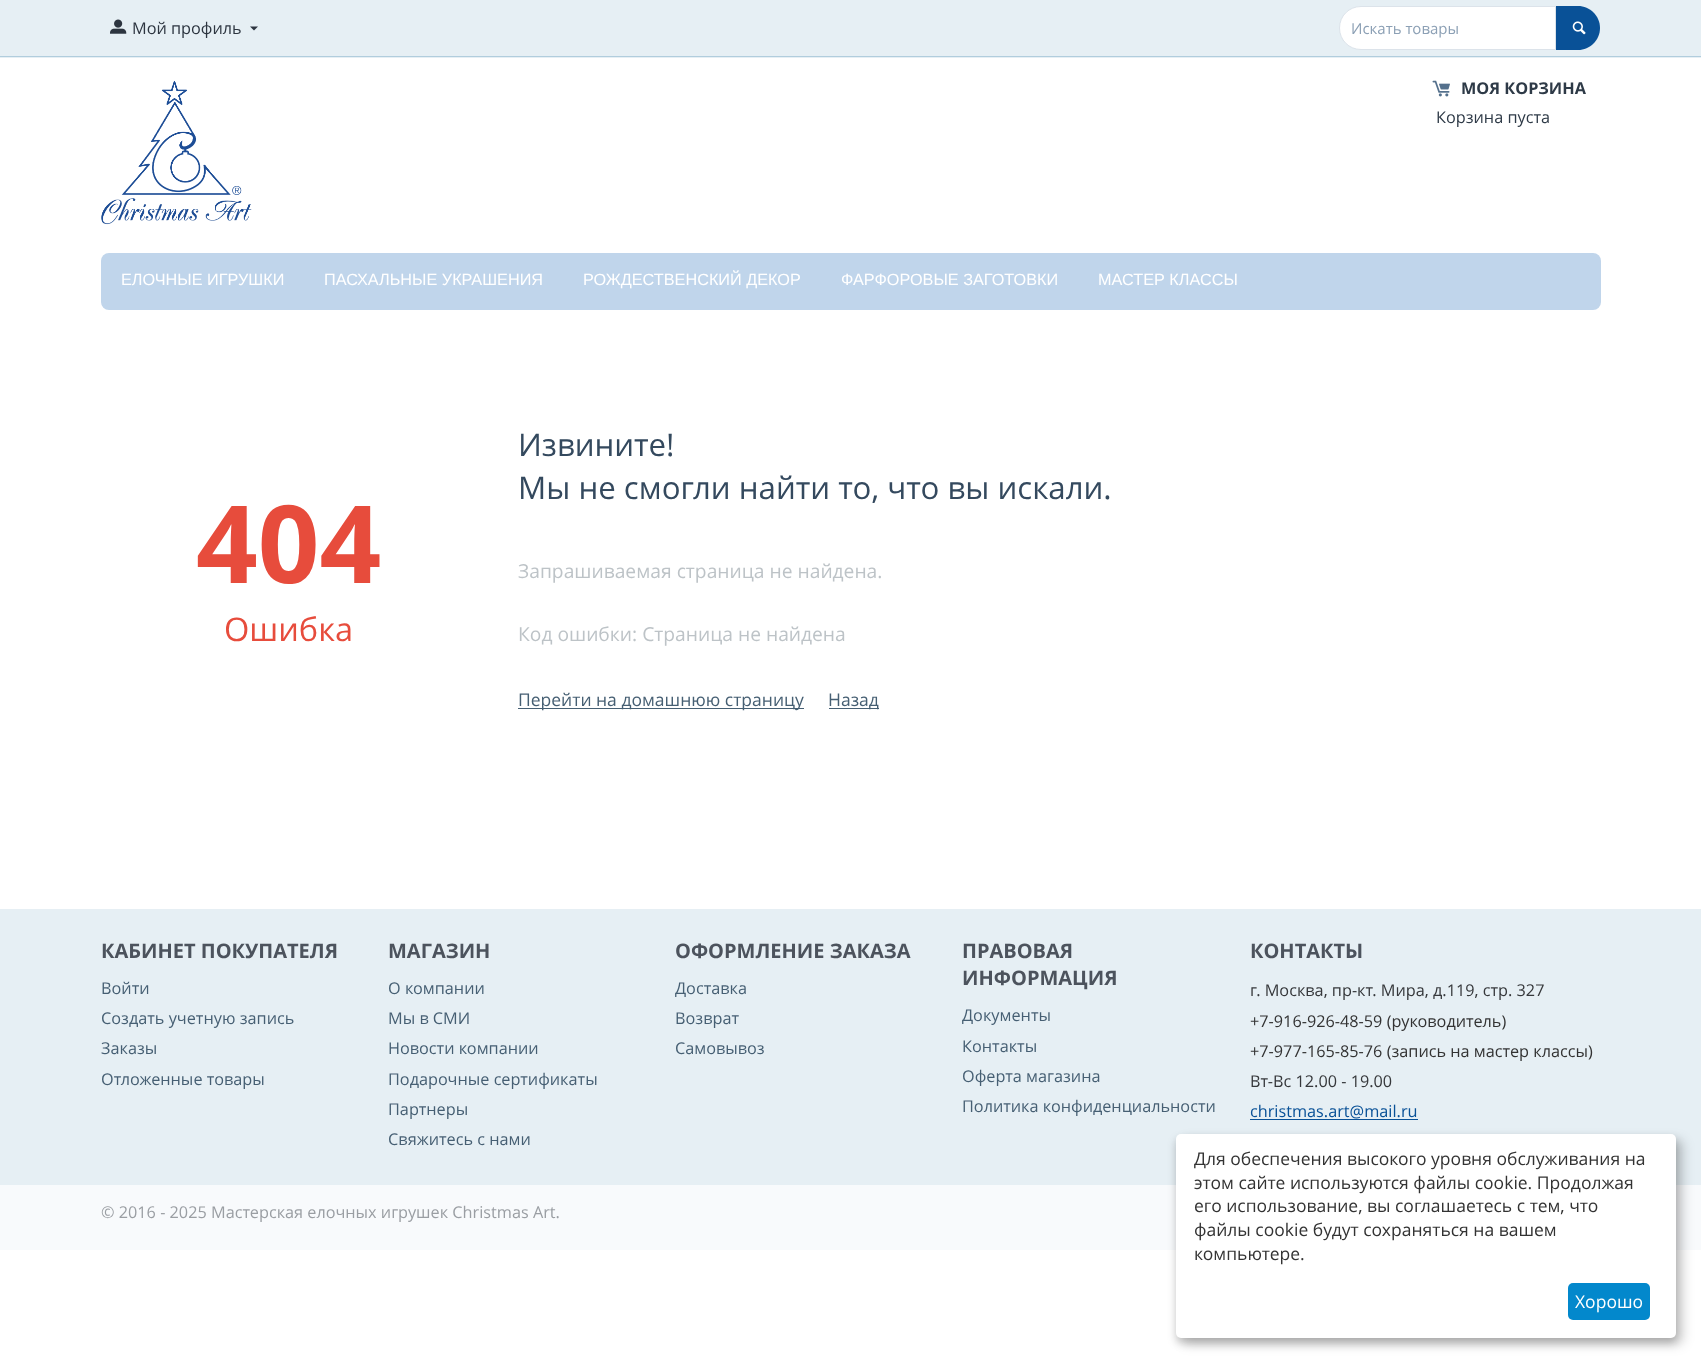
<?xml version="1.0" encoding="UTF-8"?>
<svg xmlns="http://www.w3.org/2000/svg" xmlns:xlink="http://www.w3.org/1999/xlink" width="1701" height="1362">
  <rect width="100%" height="100%" fill="#ffffff" />
  <rect width="1701" height="58" fill="#e6eff4" />
  <rect y="56" width="1701" height="1" fill="#b1cddd" />
  <image x="110" y="19" width="17" height="15" xlink:href="image1.png" />
  <path d="M 254 30.5 l -4 -4 h 8 z" fill="#2d3540" />
  <path d="M 1361 6.5 h 194.5 v 43 h -194.5 c -12 0 -21.5 -9.5 -21.5 -21.5 c 0 -12 9.5 -21.5 21.5 -21.5 z" fill="#ffffff" stroke="#dce3ea" />
  <path d="M 1556 6 h 22 c 12 0 22 10 22 22 c 0 12 -10 22 -22 22 h -22 z" fill="#095197" />
  <image x="1572" y="21" width="14" height="14" xlink:href="image2.png" />
  <image x="101" y="80" width="151" height="145" xlink:href="image3.png" />
  <image x="1432" y="80" width="18" height="17" xlink:href="image4.png" />
  <rect x="101" y="253" width="1500" height="57" rx="8" fill="#c0d5eb" />
  <rect x="518" y="708" width="286" height="1" fill="#465f73" />
  <rect x="829" y="708" width="50" height="1" fill="#465f73" />
  <rect y="909" width="1701" height="276" fill="#e6eff4" />
  <rect x="1250" y="1119" width="168" height="1" fill="#095197" />
  <rect y="1185" width="1701" height="65" fill="#f8fafc" />
  <rect x="1183" y="1140" width="500" height="204" rx="5" fill="#000000" fill-opacity="0.19" filter="blur(6px)" />
  <rect x="1176" y="1139" width="500" height="204" rx="5" fill="#000000" fill-opacity="0.2" filter="blur(4px)" />
  <rect x="1176" y="1134" width="500" height="204" rx="5" fill="#ffffff" />
  <rect x="1568" y="1283" width="82" height="37" rx="5" fill="#0388cc" />
  <text x="132" y="34" style="font-family: Open Sans; font-size: 16.25px; fill: #2d3540">Мой профиль</text>
  <text x="1351" y="34" style="font-family: Open Sans; font-size: 15px; fill: #8ca0b5">Искать товары</text>
  <text x="1461" y="94" style="font-family: Open Sans; font-size: 16.25px; font-weight: bold; fill: #2e3a47">МОЯ КОРЗИНА</text>
  <text x="1436" y="123" style="font-family: Open Sans; font-size: 16.25px; fill: #2e3a47">Корзина пуста</text>
  <text x="121" y="285" style="font-family: Liberation Sans; font-size: 16.25px; fill: #ffffff">ЕЛОЧНЫЕ ИГРУШКИ</text>
  <text x="324" y="285" style="font-family: Liberation Sans; font-size: 16.25px; fill: #ffffff">ПАСХАЛЬНЫЕ УКРАШЕНИЯ</text>
  <text x="583" y="285" style="font-family: Liberation Sans; font-size: 16.25px; fill: #ffffff">РОЖДЕСТВЕНСКИЙ ДЕКОР</text>
  <text x="841" y="285" style="font-family: Liberation Sans; font-size: 16.25px; fill: #ffffff">ФАРФОРОВЫЕ ЗАГОТОВКИ</text>
  <text x="1098" y="285" style="font-family: Liberation Sans; font-size: 16.25px; fill: #ffffff">МАСТЕР КЛАССЫ</text>
  <text x="196" y="583" style="font-family: Open Sans; font-size: 108px; font-weight: bold; fill: #e74c3c">404</text>
  <text x="224" y="641" style="font-family: Open Sans; font-size: 32.5px; fill: #e74c3c">Ошибка</text>
  <text x="518" y="456" style="font-family: Open Sans; font-size: 31.25px; fill: #34495e">Извините!</text>
  <text x="518" y="499" style="font-family: Open Sans; font-size: 31.25px; fill: #34495e">Мы не смогли найти то, что вы искали.</text>
  <text x="518" y="578" style="font-family: Open Sans; font-size: 19.25px; fill: #bdc3c7">Запрашиваемая страница не найдена.</text>
  <text x="518" y="641" style="font-family: Open Sans; font-size: 19.25px; fill: #bdc3c7">Код ошибки: Страница не найдена</text>
  <text x="518" y="706" style="font-family: Open Sans; font-size: 17.5px; fill: #465f73">Перейти на домашнюю страницу</text>
  <text x="828" y="706" style="font-family: Open Sans; font-size: 17.5px; fill: #465f73">Назад</text>
  <text x="101" y="958" style="font-family: Open Sans; font-size: 20px; font-weight: bold; fill: #4c535d">КАБИНЕТ ПОКУПАТЕЛЯ</text>
  <text x="101" y="994" style="font-family: Open Sans; font-size: 16.25px; fill: #465f73">Войти</text>
  <text x="101" y="1024" style="font-family: Open Sans; font-size: 16.25px; fill: #465f73">Создать учетную запись</text>
  <text x="101" y="1054" style="font-family: Open Sans; font-size: 16.25px; fill: #465f73">Заказы</text>
  <text x="101" y="1085" style="font-family: Open Sans; font-size: 16.25px; fill: #465f73">Отложенные товары</text>
  <text x="388" y="958" style="font-family: Open Sans; font-size: 20px; font-weight: bold; fill: #4c535d">МАГАЗИН</text>
  <text x="388" y="994" style="font-family: Open Sans; font-size: 16.25px; fill: #465f73">О компании</text>
  <text x="388" y="1024" style="font-family: Open Sans; font-size: 16.25px; fill: #465f73">Мы в СМИ</text>
  <text x="388" y="1054" style="font-family: Open Sans; font-size: 16.25px; fill: #465f73">Новости компании</text>
  <text x="388" y="1085" style="font-family: Open Sans; font-size: 16.25px; fill: #465f73">Подарочные сертификаты</text>
  <text x="388" y="1115" style="font-family: Open Sans; font-size: 16.25px; fill: #465f73">Партнеры</text>
  <text x="388" y="1145" style="font-family: Open Sans; font-size: 16.25px; fill: #465f73">Свяжитесь с нами</text>
  <text x="675" y="958" style="font-family: Open Sans; font-size: 20px; font-weight: bold; fill: #4c535d">ОФОРМЛЕНИЕ ЗАКАЗА</text>
  <text x="675" y="994" style="font-family: Open Sans; font-size: 16.25px; fill: #465f73">Доставка</text>
  <text x="675" y="1024" style="font-family: Open Sans; font-size: 16.25px; fill: #465f73">Возврат</text>
  <text x="675" y="1054" style="font-family: Open Sans; font-size: 16.25px; fill: #465f73">Самовывоз</text>
  <text x="962" y="958" style="font-family: Open Sans; font-size: 20px; font-weight: bold; fill: #4c535d">ПРАВОВАЯ</text>
  <text x="962" y="985" style="font-family: Open Sans; font-size: 20px; font-weight: bold; fill: #4c535d">ИНФОРМАЦИЯ</text>
  <text x="962" y="1021" style="font-family: Open Sans; font-size: 16.25px; fill: #465f73">Документы</text>
  <text x="962" y="1052" style="font-family: Open Sans; font-size: 16.25px; fill: #465f73">Контакты</text>
  <text x="962" y="1082" style="font-family: Open Sans; font-size: 16.25px; fill: #465f73">Оферта магазина</text>
  <text x="962" y="1112" style="font-family: Open Sans; font-size: 16.25px; fill: #465f73">Политика конфиденциальности</text>
  <text x="1250" y="958" style="font-family: Open Sans; font-size: 20px; font-weight: bold; fill: #4c535d">КОНТАКТЫ</text>
  <text x="1250" y="996" style="font-family: Open Sans; font-size: 16.25px; fill: #36383b">г. Москва, пр-кт. Мира, д.119, стр. 327</text>
  <text x="1250" y="1027" style="font-family: Open Sans; font-size: 16.25px; fill: #333333">+7-916-926-48-59 (руководитель)</text>
  <text x="1250" y="1057" style="font-family: Open Sans; font-size: 16.25px; fill: #333333">+7-977-165-85-76 (запись на мастер классы)</text>
  <text x="1250" y="1087" style="font-family: Open Sans; font-size: 16.25px; fill: #36383b">Вт-Вс 12.00 - 19.00</text>
  <text x="1250" y="1117" style="font-family: Open Sans; font-size: 16.25px; fill: #095197">christmas.art@mail.ru</text>
  <text x="101" y="1218" style="font-family: Open Sans; font-size: 16.25px; fill: #9a9ea3">© 2016 - 2025 Мастерская елочных игрушек Christmas Art.</text>
  <text x="1194" y="1165" style="font-family: Open Sans; font-size: 17.5px; fill: #333333">Для обеспечения высокого уровня обслуживания на</text>
  <text x="1194" y="1189" style="font-family: Open Sans; font-size: 17.5px; fill: #333333">этом сайте используются файлы cookie. Продолжая</text>
  <text x="1194" y="1212" style="font-family: Open Sans; font-size: 17.5px; fill: #333333">его использование, вы соглашаетесь с тем, что</text>
  <text x="1194" y="1236" style="font-family: Open Sans; font-size: 17.5px; fill: #333333">файлы cookie будут сохраняться на вашем</text>
  <text x="1194" y="1260" style="font-family: Open Sans; font-size: 17.5px; fill: #333333">компьютере.</text>
  <text x="1575" y="1308" style="font-family: Open Sans; font-size: 17.5px; fill: #ffffff">Хорошо</text>
</svg>
